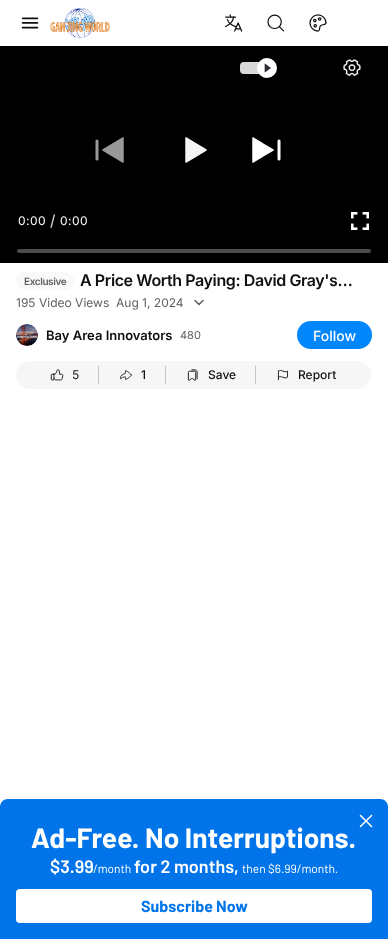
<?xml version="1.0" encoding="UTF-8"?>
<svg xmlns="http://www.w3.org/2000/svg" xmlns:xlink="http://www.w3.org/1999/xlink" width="388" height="939">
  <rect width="100%" height="100%" fill="#ffffff" />
  <image x="21" y="17" width="18" height="12" xlink:href="image1.png" />
  <image x="50" y="7" width="60" height="31" xlink:href="image2.png" />
  <image x="225" y="14" width="18" height="18" xlink:href="image3.png" />
  <image x="267" y="14" width="18" height="18" xlink:href="image4.png" />
  <image x="309" y="14" width="18" height="18" xlink:href="image5.png" />
  <rect y="46" width="388" height="217" fill="#000000" />
  <rect x="240" y="62" width="27" height="12" rx="4" fill="#d9d9d9" />
  <circle cx="267" cy="68" r="10" fill="#ffffff" />
  <image x="264" y="63" width="7" height="10" xlink:href="image6.png" />
  <image x="343" y="59" width="18" height="17" xlink:href="image7.png" />
  <path d="M 123 138 v 24 l -20 -12 z" fill="#999999" stroke="#999999" stroke-width="1.5" stroke-linecap="round" stroke-linejoin="round" />
  <path d="M 97 159 v -18" fill="none" stroke="#999999" stroke-width="3" stroke-linecap="round" stroke-linejoin="round" />
  <path d="M 186 138 v 24 l 20 -12 z" fill="#f5f5f5" stroke="#f5f5f5" stroke-width="1.5" stroke-linejoin="round" />
  <path d="M 253 162 v -24 l 20 12 z" fill="#ffffff" stroke="#ffffff" stroke-width="1.5" stroke-linecap="round" stroke-linejoin="round" />
  <path d="M 279 141 v 18" fill="none" stroke="#ffffff" stroke-width="3" stroke-linecap="round" stroke-linejoin="round" />
  <image x="351" y="212" width="18" height="18" xlink:href="image8.png" />
  <rect x="17" y="249" width="354" height="4" rx="2" fill="#4d4d4d" />
  <rect x="16" y="272" width="58" height="18" rx="9" fill="#f9f9f9" />
  <image x="194" y="299" width="10" height="7" xlink:href="image9.png" />
  <image x="16" y="324" width="22" height="22" xlink:href="image10.png" />
  <rect x="297" y="321" width="75" height="28" rx="14" fill="#0187fd" />
  <path d="M 30 361 h 69 v 28 h -69 c -7.5 0 -14 -6.5 -14 -14 c 0 -7.5 6.5 -14 14 -14 z" fill="#f6f6f6" />
  <image x="50" y="369" width="14" height="12" xlink:href="image11.png" />
  <rect x="98" y="366" width="1" height="18" fill="#c4c4c4" />
  <rect x="99" y="361" width="157" height="28" fill="#f6f6f6" />
  <image x="120" y="370" width="13" height="11" xlink:href="image12.png" />
  <rect x="165" y="366" width="1" height="18" fill="#c4c4c4" />
  <image x="187" y="369" width="11" height="12" xlink:href="image13.png" />
  <rect x="255" y="366" width="1" height="18" fill="#c4c4c4" />
  <path d="M 256 361 h 101 c 7.5 0 14 6.5 14 14 c 0 7.5 -6.5 14 -14 14 h -101 z" fill="#f6f6f6" />
  <image x="277" y="369" width="11" height="12" xlink:href="image14.png" />
  <path d="M 8 799 h 372 c 4.5 0 8 3.5 8 8 v 132 h -388 v -132 c 0 -4.5 3.5 -8 8 -8 z" fill="#0074e8" />
  <image x="359" y="814" width="14" height="14" xlink:href="image15.png" />
  <rect x="16" y="889" width="356" height="34" rx="4" fill="#ffffff" />
  <text x="18" y="225" style="font-family: 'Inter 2'; font-size: 12px; letter-spacing: 0.5px; fill: #ffffff">0:00</text>
  <text x="50" y="226" style="font-family: 'Inter 2'; font-size: 15px; fill: #e0e0e0">/</text>
  <text x="60" y="225" style="font-family: 'Inter 2'; font-size: 12px; letter-spacing: 0.5px; fill: #ffffff">0:00</text>
  <text x="24" y="285" style="font-family: Inter; font-size: 10px; font-weight: 600; letter-spacing: -0.4px; fill: #606060">Exclusive</text>
  <text x="80" y="286" style="font-family: Inter; font-size: 16px; font-weight: 600; letter-spacing: -0.4px; fill: #0f0f0f">A Price Worth Paying: David Gray's…</text>
  <text x="16" y="307" style="font-family: Inter; font-size: 12px; fill: #606060">195</text>
  <text x="39" y="307" style="font-family: 'Inter 2'; font-size: 12px; fill: #606060">Video Views</text>
  <text x="116" y="307" style="font-family: 'Inter 2'; font-size: 12px; fill: #606060">Aug 1, 2024</text>
  <text x="46" y="340" style="font-family: Inter; font-size: 13px; font-weight: 600; fill: #0f0f0f">Bay Area Innovators</text>
  <text x="180" y="339" style="font-family: 'Inter 2'; font-size: 11px; fill: #606060">480</text>
  <text x="313" y="341" style="font-family: Inter; font-size: 14px; font-weight: 500; fill: #ffffff">Follow</text>
  <text x="72" y="379" style="font-family: 'Inter 2'; font-size: 12px; fill: #0f0f0f">5</text>
  <text x="141" y="379" style="font-family: Inter; font-size: 12px; font-weight: 500; fill: #0f0f0f">1</text>
  <text x="208" y="379" style="font-family: Inter; font-size: 12px; font-weight: 500; fill: #0f0f0f">Save</text>
  <text x="298" y="379" style="font-family: Inter; font-size: 12px; font-weight: 500; fill: #0f0f0f">Report</text>
  <text x="31" y="848" style="font-family: Barlow; font-size: 28px; font-weight: bold; fill: #ffffff">Ad-Free. No Interruptions.</text>
  <text x="50" y="873" style="font-family: Barlow; font-size: 18px; font-weight: 600; fill: #ffffff">$3.99</text>
  <text x="93" y="873" style="font-family: Barlow; font-size: 12px; fill: #ffffff">/month</text>
  <text x="134" y="873" style="font-family: Barlow; font-size: 18px; font-weight: 600; fill: #ffffff">for 2 months,</text>
  <text x="242" y="873" style="font-family: Barlow; font-size: 12px; fill: #ffffff">then $6.99/month.</text>
  <text x="141" y="912" style="font-family: Barlow; font-size: 16px; font-weight: bold; fill: #0074e8">Subscribe Now</text>
</svg>
